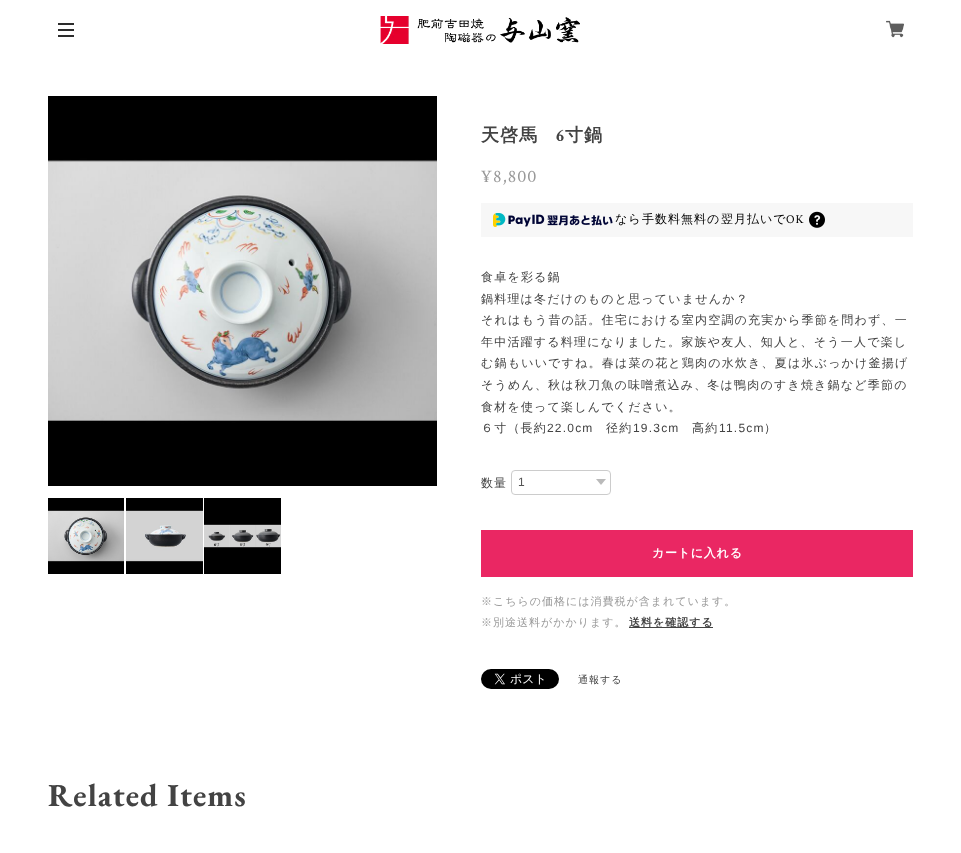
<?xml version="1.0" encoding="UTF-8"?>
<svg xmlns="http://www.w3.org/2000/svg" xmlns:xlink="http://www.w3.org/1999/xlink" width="961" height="853">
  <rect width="100%" height="100%" fill="#ffffff" />
  <rect x="58" y="23" width="16" height="2" fill="#2c2c2c" />
  <rect x="58" y="29" width="16" height="2" fill="#2c2c2c" />
  <rect x="58" y="35" width="16" height="2" fill="#2c2c2c" />
  <image x="380" y="16" width="200" height="28" xlink:href="image1.png" />
  <image x="886" y="20" width="18" height="18" xlink:href="image2.png" />
  <image x="48" y="96" width="389" height="390" xlink:href="image3.png" />
  <image x="48" y="498" width="76" height="76" xlink:href="image4.png" />
  <image x="126" y="498" width="77" height="76" xlink:href="image5.png" />
  <image x="204" y="498" width="77" height="76" xlink:href="image6.png" />
  <rect x="481" y="203" width="432" height="34" fill="#f7f7f7" />
  <image x="493" y="213" width="120" height="14" xlink:href="image7.png" />
  <image x="809" y="211" width="16" height="17" xlink:href="image8.png" />
  <image x="596" y="479" width="10" height="6" xlink:href="image9.png" />
  <rect x="511.5" y="470.5" width="99" height="24" rx="3.5" fill="none" stroke="#cccccc" />
  <rect x="481" y="530" width="432" height="47" fill="#ea2763" />
  <rect x="629" y="627" width="84" height="1" fill="#434343" />
  <image x="481" y="669" width="78" height="20" xlink:href="image10.png" />
  <text x="481" y="141" style="font-family: WenQuanYi Zen Hei; font-size: 18px; font-weight: bold; letter-spacing: 1px; fill: #434343">天啓馬</text>
  <text x="556" y="141" style="font-family: Crimson Text; font-size: 18px; font-weight: bold; letter-spacing: 1px; fill: #434343">6</text>
  <text x="565" y="141" style="font-family: WenQuanYi Zen Hei; font-size: 18px; font-weight: bold; letter-spacing: 1px; fill: #434343">寸鍋</text>
  <text x="481" y="182" style="font-family: Crimson Text; font-size: 18px; letter-spacing: 1px; fill: #999999">¥8,800</text>
  <text x="615" y="223" style="font-family: WenQuanYi Zen Hei; font-size: 12px; font-weight: 500; letter-spacing: 1px; fill: #000000">なら</text>
  <text x="642" y="223" style="font-family: WenQuanYi Zen Hei; font-size: 12px; font-weight: 500; letter-spacing: 1px; fill: #000000">手数料無料の</text>
  <text x="721" y="223" style="font-family: WenQuanYi Zen Hei; font-size: 12px; font-weight: 500; letter-spacing: 1px; fill: #000000">翌月払いで</text>
  <text x="786" y="223" style="font-family: Crimson Text; font-size: 12px; letter-spacing: 1px; fill: #000000">OK</text>
  <text x="481" y="281" style="font-family: WenQuanYi Zen Hei; font-size: 12px; font-weight: 500; letter-spacing: 1.2px; fill: #434343">食卓を彩る鍋</text>
  <text x="481" y="303" style="font-family: WenQuanYi Zen Hei; font-size: 12px; font-weight: 500; letter-spacing: 1.2px; fill: #434343">鍋料理は冬だけのものと思っていませんか？</text>
  <text x="481" y="324" style="font-family: WenQuanYi Zen Hei; font-size: 12px; font-weight: 500; letter-spacing: 1.2px; fill: #434343">それはもう昔の話。住宅における室内空調の充実から季節を問わず、一</text>
  <text x="481" y="346" style="font-family: WenQuanYi Zen Hei; font-size: 12px; font-weight: 500; letter-spacing: 1.2px; fill: #434343">年中活躍する料理になりました。家族や友人、知人と、そう一人で楽し</text>
  <text x="481" y="367" style="font-family: WenQuanYi Zen Hei; font-size: 12px; font-weight: 500; letter-spacing: 1.2px; fill: #434343">む鍋もいいですね。春は菜の花と鶏肉の水炊き、夏は氷ぶっかけ釜揚げ</text>
  <text x="481" y="389" style="font-family: WenQuanYi Zen Hei; font-size: 12px; font-weight: 500; letter-spacing: 1.2px; fill: #434343">そうめん、秋は秋刀魚の味噌煮込み、冬は鴨肉のすき焼き鍋など季節の</text>
  <text x="481" y="411" style="font-family: WenQuanYi Zen Hei; font-size: 12px; font-weight: 500; letter-spacing: 1.2px; fill: #434343">食材を使って楽しんでください。</text>
  <text x="481" y="432" style="font-family: WenQuanYi Zen Hei; font-size: 12px; font-weight: 500; letter-spacing: 1.2px; fill: #434343">６寸（長約</text>
  <text x="547" y="432" style="font-family: Liberation Sans; font-size: 12px; letter-spacing: 1.2px; fill: #434343">22.0cm</text>
  <text x="606" y="432" style="font-family: WenQuanYi Zen Hei; font-size: 12px; font-weight: 500; letter-spacing: 1.2px; fill: #434343">径約</text>
  <text x="633" y="432" style="font-family: Liberation Sans; font-size: 12px; letter-spacing: 1.2px; fill: #434343">19.3cm</text>
  <text x="692" y="432" style="font-family: WenQuanYi Zen Hei; font-size: 12px; font-weight: 500; letter-spacing: 1.2px; fill: #434343">高約</text>
  <text x="719" y="432" style="font-family: Liberation Sans; font-size: 12px; letter-spacing: 1.2px; fill: #434343">11.5cm</text>
  <text x="764" y="432" style="font-family: WenQuanYi Zen Hei; font-size: 12px; font-weight: 500; letter-spacing: 1.2px; fill: #434343">）</text>
  <text x="481" y="487" style="font-family: WenQuanYi Zen Hei; font-size: 12px; font-weight: 500; letter-spacing: 1px; fill: #434343">数量</text>
  <text x="518" y="486" style="font-family: Liberation Sans; font-size: 12px; fill: #555555">1</text>
  <text x="652" y="557" style="font-family: WenQuanYi Zen Hei; font-size: 12px; font-weight: bold; letter-spacing: 0.75px; fill: #ffffff">カートに入れる</text>
  <text x="481" y="605" style="font-family: WenQuanYi Zen Hei; font-size: 11px; font-weight: 500; letter-spacing: 1px; fill: #999999">※こちらの価格には消費税が含まれています。</text>
  <text x="481" y="626" style="font-family: WenQuanYi Zen Hei; font-size: 11px; font-weight: 500; letter-spacing: 1px; fill: #999999">※別途送料がかかります。</text>
  <text x="629" y="626" style="font-family: WenQuanYi Zen Hei; font-size: 11px; font-weight: bold; letter-spacing: 1px; fill: #434343">送料を確認する</text>
  <text x="578" y="683" style="font-family: WenQuanYi Zen Hei; font-size: 10px; font-weight: 500; letter-spacing: 1px; fill: #434343">通報する</text>
  <text x="48" y="806" style="font-family: EB Garamond; font-size: 32px; font-weight: bold; letter-spacing: 1px; fill: #434343">Related Items</text>
</svg>
